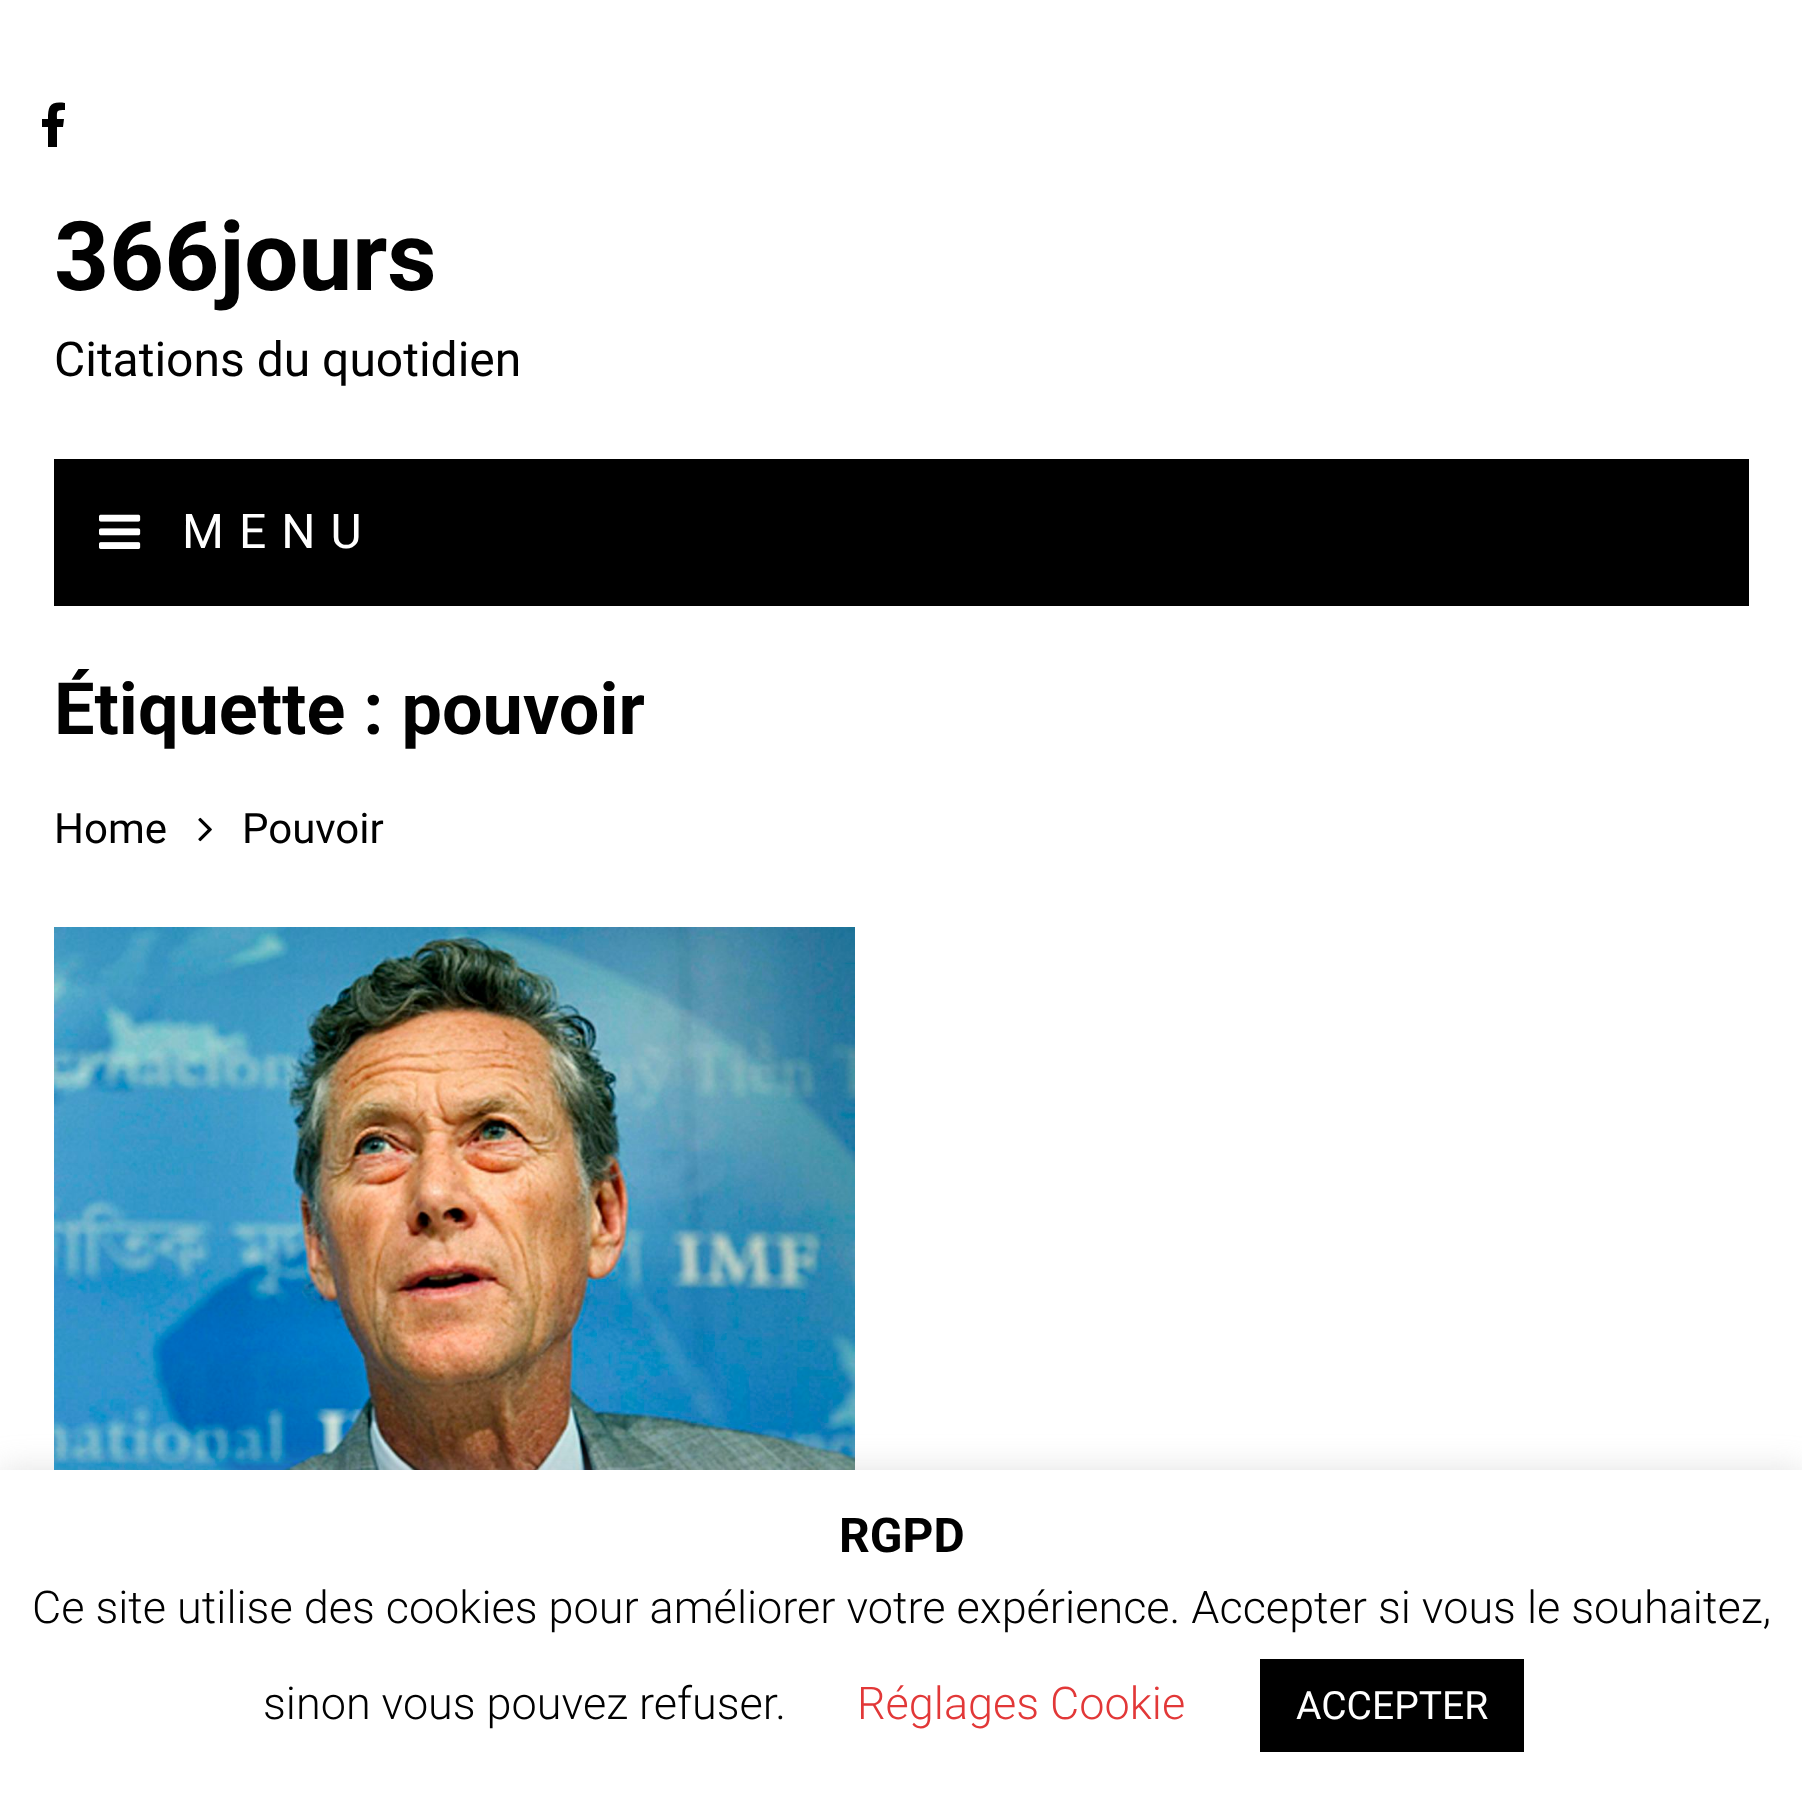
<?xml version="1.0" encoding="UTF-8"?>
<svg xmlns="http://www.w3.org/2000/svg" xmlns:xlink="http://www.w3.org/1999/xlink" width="1802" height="1802">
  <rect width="100%" height="100%" fill="#ffffff" />
  <path d="M 65 103 v 7 c -9 0 -8 1 -8 9 h 7 l -1 8 h -6 v 20 h -9 v -20 h -6 v -8 h 6 c 0 -13 2 -18 17 -16 z" fill="#000000" />
  <rect x="54" y="459" width="1695" height="147" fill="#000000" />
  <image x="99" y="514" width="42" height="35" xlink:href="image1.png" />
  <image x="198" y="817" width="14" height="25" xlink:href="image2.png" />
  <image x="54" y="927" width="801" height="543" xlink:href="image3.png" />
  <rect y="1467" width="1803" height="333" fill="#acabab" fill-opacity="0.3" filter="blur(15px)" />
  <rect y="1470" width="1802" height="332" fill="#ffffff" />
  <rect x="1260" y="1659" width="264" height="93" fill="#000000" />
  <text x="54" y="290" style="font-family: Roboto; font-size: 96px; font-weight: bold; fill: #010101">366jours</text>
  <text x="54" y="376" style="font-family: Roboto; font-size: 48px; fill: #010101">Citations du quotidien</text>
  <text x="182" y="548" style="font-family: Roboto; font-size: 48px; letter-spacing: 15px; fill: #ffffff">MENU</text>
  <text x="54" y="734" style="font-family: Roboto; font-size: 72px; font-weight: bold; fill: #010101">Étiquette : pouvoir</text>
  <text x="54" y="843" style="font-family: Roboto; font-size: 42px; fill: #010101">Home</text>
  <text x="242" y="843" style="font-family: Roboto; font-size: 42px; fill: #010101">Pouvoir</text>
  <text x="839" y="1552" style="font-family: Roboto; font-size: 48px; font-weight: bold; fill: #010101">RGPD</text>
  <text x="32" y="1623" style="font-family: Roboto; font-size: 45px; font-weight: 300; fill: #010101">Ce site utilise des cookies pour améliorer votre expérience. Accepter si vous le souhaitez,</text>
  <text x="263" y="1719" style="font-family: Roboto; font-size: 45px; font-weight: 300; fill: #010101">sinon vous pouvez refuser.</text>
  <text x="857" y="1719" style="font-family: Roboto; font-size: 45px; font-weight: 300; fill: #e23838">Réglages Cookie</text>
  <text x="1296" y="1719" style="font-family: Roboto; font-size: 39px; fill: #ffffff">ACCEPTER</text>
</svg>
